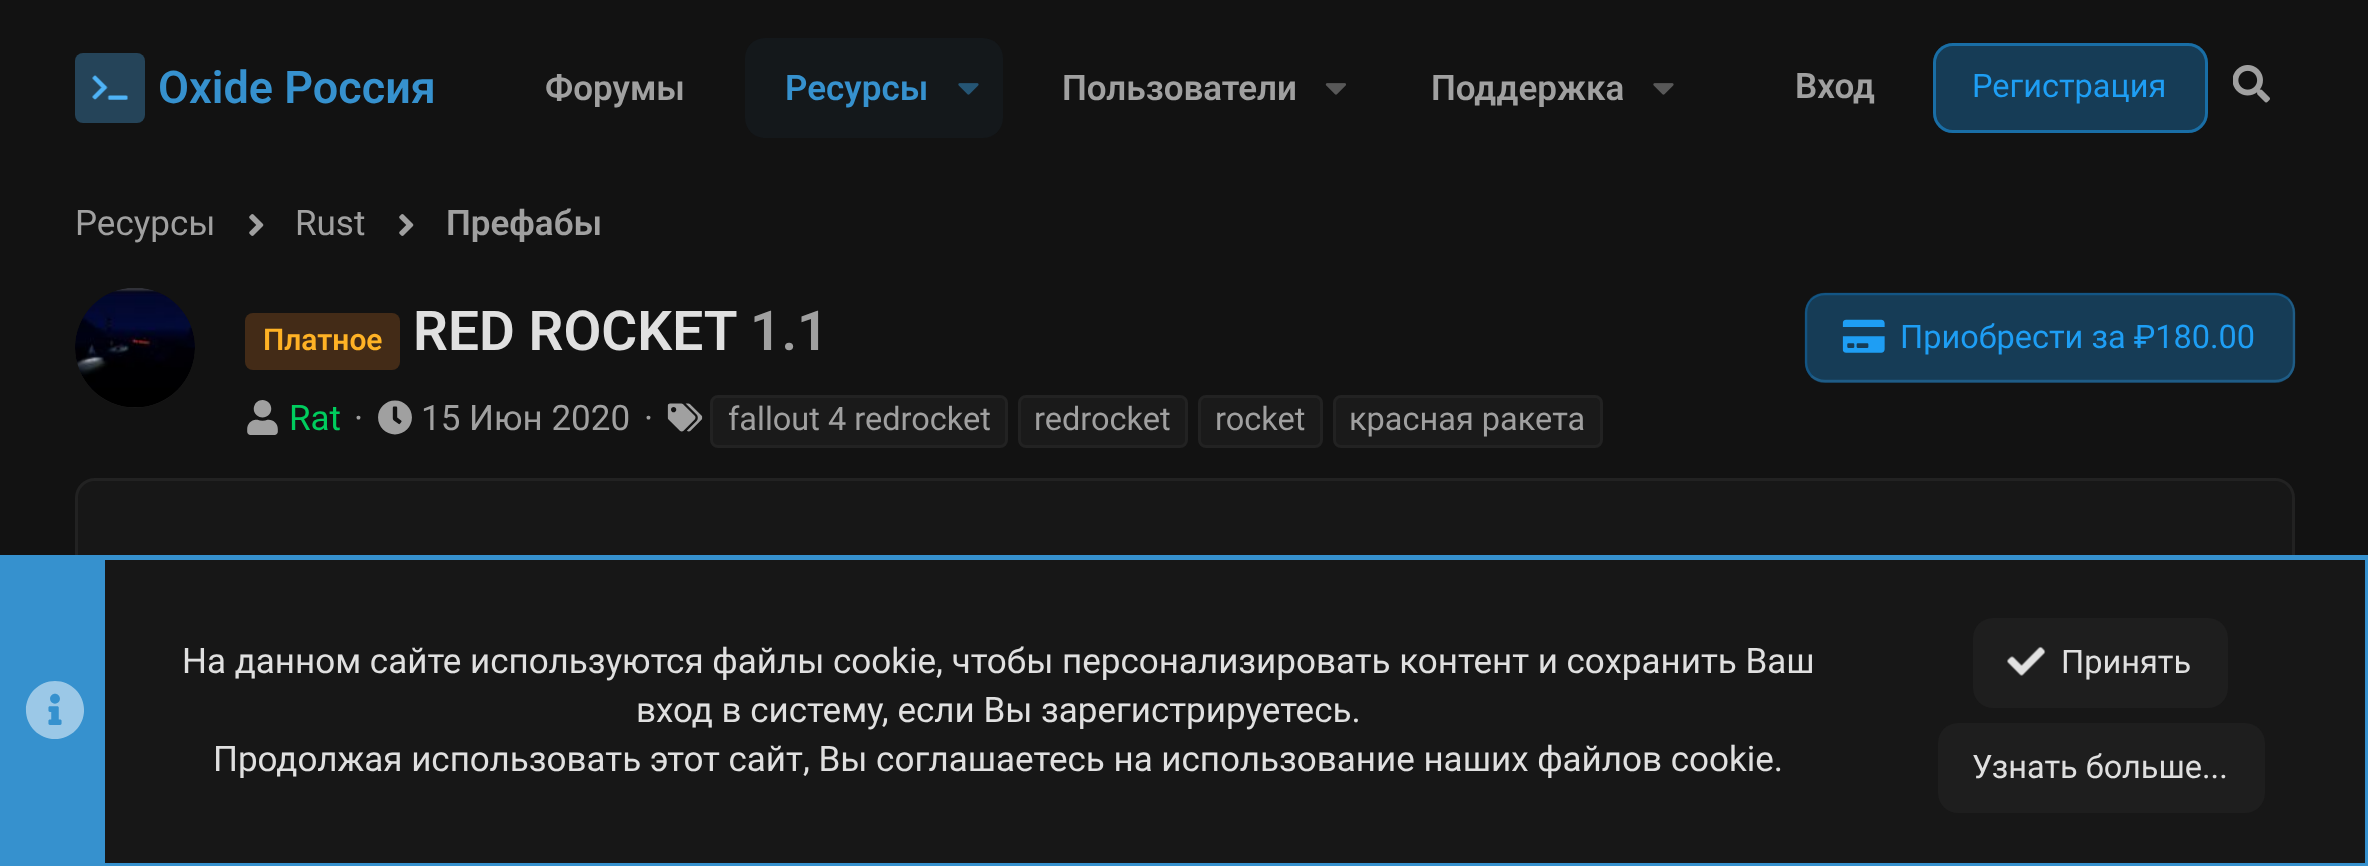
<?xml version="1.0" encoding="UTF-8"?>
<svg xmlns="http://www.w3.org/2000/svg" xmlns:xlink="http://www.w3.org/1999/xlink" width="2368" height="866">
  <rect width="100%" height="100%" fill="#121212" />
  <rect x="75" y="53" width="70" height="70" rx="8" fill="#254459" />
  <image x="92" y="75" width="36" height="25" xlink:href="image1.png" />
  <rect x="745" y="38" width="258" height="100" rx="20" fill="#14181b" />
  <image x="958" y="83" width="21" height="12" xlink:href="image2.png" />
  <image x="1325" y="83" width="21" height="12" xlink:href="image3.png" />
  <image x="1653" y="83" width="21" height="12" xlink:href="image4.png" />
  <rect x="1933" y="43" width="275" height="90" rx="20" fill="#163c56" />
  <rect x="1934.5" y="44.5" width="272" height="87" rx="18.5" fill="none" stroke="#1e9ef4" stroke-opacity="0.51" stroke-width="3" />
  <image x="2233" y="65" width="37" height="38" xlink:href="image5.png" />
  <image x="249" y="214" width="15" height="22" xlink:href="image6.png" />
  <image x="399" y="214" width="15" height="22" xlink:href="image6.png" />
  <circle cx="135" cy="348" r="60" fill="#171717" />
  <image x="75" y="288" width="120" height="119" xlink:href="image7.png" />
  <rect x="245" y="313" width="155" height="57" rx="8" fill="#432b17" />
  <rect x="1805" y="293" width="490" height="90" rx="20" fill="#163c56" />
  <path d="M 2288.5 299 c 3.5 4 5.5 8.5 5.5 13.5 v 50 c 0 5 -2 9.5 -5.5 13.5 c -4 3.5 -8.5 5 -13.5 5 h -450 c -5 0 -9.5 -1.5 -13.5 -5" fill="none" stroke="#36a8f5" stroke-opacity="0.3" stroke-width="2.5" />
  <path d="M 1811.5 376 c -3.5 -4 -5.5 -8.5 -5.5 -13.5 v -50 c 0 -5 2 -9.5 5.5 -13.5 c 4 -3.5 8.5 -5 13.5 -5 h 450 c 5 0 9.5 1.5 13.5 5" fill="none" stroke="#0c92ed" stroke-opacity="0.3" stroke-width="2.5" />
  <image x="1842" y="319" width="43" height="34" xlink:href="image8.png" />
  <image x="247" y="400" width="31" height="35" xlink:href="image9.png" />
  <image x="378" y="400" width="34" height="35" xlink:href="image10.png" />
  <image x="667" y="403" width="36" height="29" xlink:href="image11.png" />
  <rect x="711.5" y="396.5" width="295" height="50" rx="6.5" fill="#1a1a1a" stroke="#222222" stroke-width="3" />
  <rect x="1019.5" y="396.5" width="167" height="50" rx="6.5" fill="#1a1a1a" stroke="#222222" stroke-width="3" />
  <rect x="1199.5" y="396.5" width="122" height="50" rx="6.5" fill="#1a1a1a" stroke="#222222" stroke-width="3" />
  <rect x="1334.5" y="396.5" width="267" height="50" rx="6.5" fill="#1a1a1a" stroke="#222222" stroke-width="3" />
  <rect x="76.5" y="479.5" width="2217" height="152" rx="18.5" fill="#171717" stroke="#222222" stroke-width="3" />
  <rect x="105" y="560" width="2260" height="303" fill="#171717" />
  <rect x="2.5" y="557.5" width="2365" height="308" fill="none" stroke="#3691ce" stroke-width="5" />
  <rect x="5" y="560" width="100" height="303" fill="#3691ce" />
  <image x="25" y="681" width="59" height="58" xlink:href="image12.png" />
  <rect x="1973" y="618" width="255" height="90" rx="20" fill="#1e1e1e" />
  <image x="2007" y="646" width="39" height="30" xlink:href="image13.png" />
  <rect x="1938" y="723" width="327" height="90" rx="20" fill="#1e1e1e" />
  <text x="158" y="103" style="font-family: Roboto; font-size: 45px; font-weight: 600; fill: #3691ce">Oxide Россия</text>
  <text x="545" y="100" style="font-family: Roboto; font-size: 35px; font-weight: 600; fill: #a0a0a0">Форумы</text>
  <text x="785" y="100" style="font-family: Roboto; font-size: 35px; font-weight: 600; fill: #3691ce">Ресурсы</text>
  <text x="1062" y="100" style="font-family: Roboto; font-size: 35px; font-weight: 600; fill: #a0a0a0">Пользователи</text>
  <text x="1431" y="100" style="font-family: Roboto; font-size: 35px; font-weight: 600; fill: #a0a0a0">Поддержка</text>
  <text x="1795" y="98" style="font-family: Roboto; font-size: 35px; font-weight: 600; fill: #a0a0a0">Вход</text>
  <text x="1972" y="97" style="font-family: Roboto; font-size: 32.5px; fill: #1e9ef4">Регистрация</text>
  <text x="75" y="235" style="font-family: Roboto; font-size: 35px; fill: #a0a0a0">Ресурсы</text>
  <text x="295" y="235" style="font-family: Roboto; font-size: 35px; fill: #a0a0a0">Rust</text>
  <text x="446" y="235" style="font-family: Roboto; font-size: 35px; font-weight: 600; fill: #a0a0a0">Префабы</text>
  <text x="263" y="350" style="font-family: Roboto; font-size: 30px; font-weight: 600; fill: #ffb225">Платное</text>
  <text x="413" y="350" style="font-family: Roboto; font-size: 55px; font-weight: 600; fill: #e0e0e0">RED ROCKET</text>
  <text x="750" y="350" style="font-family: Roboto; font-size: 55px; font-weight: 600; fill: #a0a0a0">1.1</text>
  <text x="1900" y="348" style="font-family: Roboto; font-size: 32.5px; fill: #1e9ef4">Приобрести за ₽180.00</text>
  <text x="289" y="430" style="font-family: Roboto; font-size: 35px; fill: #00cd5e">Rat</text>
  <text x="354" y="430" style="font-family: Roboto; font-size: 35px; fill: #a0a0a0">·</text>
  <text x="421" y="430" style="font-family: Roboto; font-size: 35px; fill: #a0a0a0">15 Июн 2020</text>
  <text x="644" y="430" style="font-family: Roboto; font-size: 35px; fill: #a0a0a0">·</text>
  <text x="728" y="430" style="font-family: Roboto; font-size: 32.5px; fill: #a0a0a0">fallout 4 redrocket</text>
  <text x="1034" y="430" style="font-family: Roboto; font-size: 32.5px; fill: #a0a0a0">redrocket</text>
  <text x="1215" y="430" style="font-family: Roboto; font-size: 32.5px; fill: #a0a0a0">rocket</text>
  <text x="1349" y="430" style="font-family: Roboto; font-size: 32.5px; fill: #a0a0a0">красная ракета</text>
  <text x="182" y="673" style="font-family: Roboto; font-size: 35px; fill: #e0e0e0">На данном сайте используются файлы cookie, чтобы персонализировать контент и сохранить Ваш</text>
  <text x="636" y="722" style="font-family: Roboto; font-size: 35px; fill: #e0e0e0">вход в систему, если Вы зарегистрируетесь.</text>
  <text x="213" y="771" style="font-family: Roboto; font-size: 35px; fill: #e0e0e0">Продолжая использовать этот сайт, Вы соглашаетесь на использование наших файлов cookie.</text>
  <text x="2061" y="673" style="font-family: Roboto; font-size: 32.5px; fill: #e0e0e0">Принять</text>
  <text x="1972" y="778" style="font-family: Roboto; font-size: 32.5px; fill: #e0e0e0">Узнать больше...</text>
</svg>
